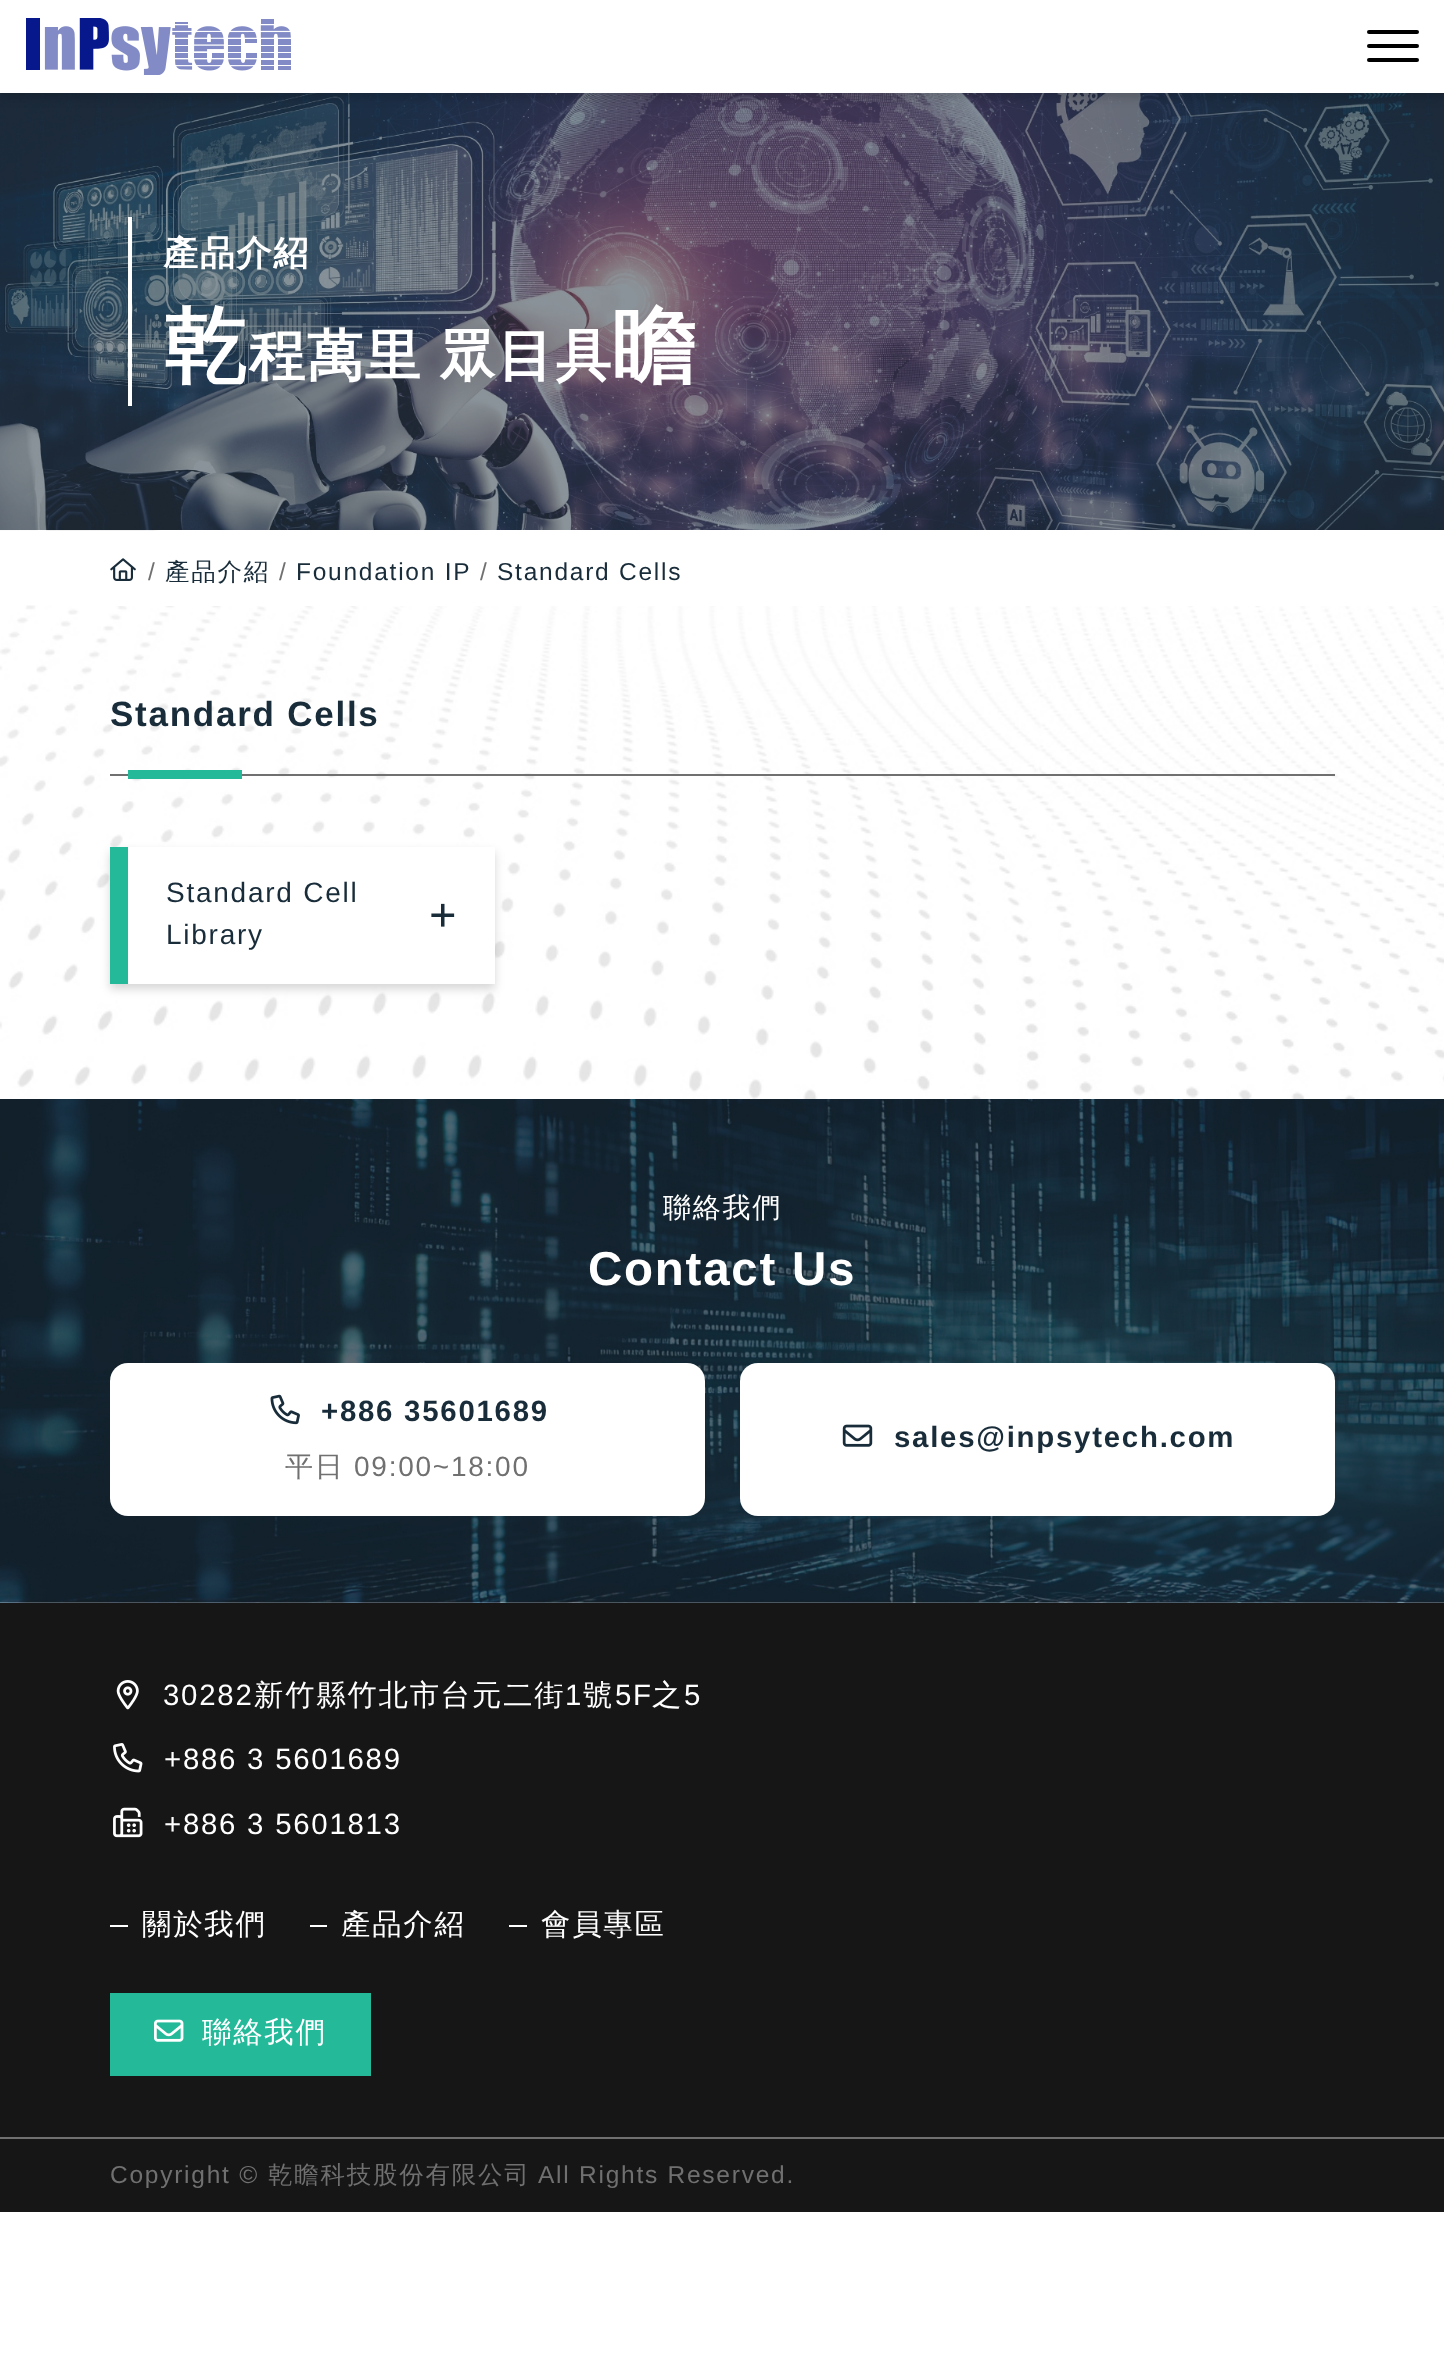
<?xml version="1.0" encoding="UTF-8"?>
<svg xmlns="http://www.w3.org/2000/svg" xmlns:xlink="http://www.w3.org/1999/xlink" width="1444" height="2368">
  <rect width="100%" height="100%" fill="#ffffff" />
  <image x="0" y="93" width="1444" height="438" xlink:href="image2.png" />
  <rect y="5" width="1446" height="93" fill="#000000" fill-opacity="0.16" filter="blur(5px)" />
  <rect width="1444" height="93" fill="#ffffff" />
  <image x="26" y="18" width="265" height="57" xlink:href="image1.png" />
  <rect x="1367" y="58" width="52" height="4" rx="2" fill="#000000" />
  <rect x="1367" y="30" width="52" height="4" rx="2" fill="#000000" />
  <rect x="1367" y="44" width="52" height="4" rx="2" fill="#000000" />
  <rect x="128" y="217" width="4" height="189" fill="#ffffff" />
  <image x="0" y="605" width="1444" height="494" xlink:href="image4.png" />
  <path d="M 163 530 h 1172 v 76 h -1225 v -23 c 0 -29.5 23.5 -53 53 -53 z" fill="#ffffff" />
  <image x="110" y="558" width="26" height="23" xlink:href="image3.png" />
  <rect x="1335" y="530" width="109" height="76" fill="#ffffff" />
  <rect x="110" y="774" width="1225" height="2" fill="#707070" />
  <rect x="128" y="770" width="114" height="9" fill="#23b999" />
  <rect x="110" y="852" width="385" height="137" fill="#000000" fill-opacity="0.16" filter="blur(5px)" />
  <rect x="128" y="847" width="367" height="137" fill="#ffffff" />
  <rect x="110" y="847" width="18" height="137" fill="#23b999" />
  <image x="431" y="903" width="24" height="24" xlink:href="image5.png" />
  <image x="0" y="1099" width="1444" height="504" xlink:href="image6.png" />
  <rect x="110" y="1363" width="595" height="153" rx="18" fill="#ffffff" />
  <image x="270" y="1394" width="30" height="31" xlink:href="image7.png" />
  <rect x="740" y="1363" width="595" height="153" rx="18" fill="#ffffff" />
  <image x="842" y="1424" width="31" height="23" xlink:href="image8.png" />
  <rect y="1603" width="1444" height="534" fill="#161616" />
  <image x="116" y="1680" width="23" height="30" xlink:href="image9.png" />
  <image x="113" y="1743" width="30" height="30" xlink:href="image10.png" />
  <image x="113" y="1807" width="30" height="31" xlink:href="image11.png" />
  <rect x="110" y="1925" width="18" height="2" fill="#ffffff" />
  <rect x="310" y="1925" width="17" height="2" fill="#ffffff" />
  <rect x="509" y="1925" width="18" height="2" fill="#ffffff" />
  <rect x="110" y="1993" width="261" height="83" fill="#23b999" />
  <image x="154" y="2019" width="30" height="23" xlink:href="image12.png" />
  <rect y="2139" width="1444" height="73" fill="#161616" />
  <rect y="2137" width="1444" height="2" fill="#707070" />
  <text x="163" y="265" style="font-family: WenQuanYi Zen Hei; font-size: 35px; font-weight: bold; letter-spacing: 1.75px; fill: #ffffff">產品介紹</text>
  <text x="163" y="375" style="font-family: WenQuanYi Zen Hei; font-size: 84px; font-weight: bold; letter-spacing: 1.75px; fill: #ffffff">乾</text>
  <text x="249" y="375" word-spacing="-1" style="font-family: WenQuanYi Zen Hei; font-size: 56px; font-weight: bold; letter-spacing: 1.75px; fill: #ffffff">程萬里 眾目具</text>
  <text x="612" y="375" style="font-family: WenQuanYi Zen Hei; font-size: 84px; font-weight: bold; letter-spacing: 1.75px; fill: #ffffff">瞻</text>
  <text x="148" y="580" style="font-family: Liberation Sans; font-size: 24.5px; letter-spacing: 1.75px; fill: #707070">/</text>
  <text x="165" y="580" style="font-family: WenQuanYi Zen Hei; font-size: 24.5px; font-weight: 500; letter-spacing: 1.75px; fill: #192c3a">產品介紹</text>
  <text x="279" y="580" style="font-family: Liberation Sans; font-size: 24.5px; letter-spacing: 1.75px; fill: #707070">/</text>
  <text x="296" y="580" style="font-family: Liberation Sans; font-size: 24.5px; letter-spacing: 1.75px; fill: #192c3a">Foundation IP</text>
  <text x="480" y="580" style="font-family: Liberation Sans; font-size: 24.5px; letter-spacing: 1.75px; fill: #707070">/</text>
  <text x="497" y="580" style="font-family: Liberation Sans; font-size: 24.5px; letter-spacing: 1.75px; fill: #192c3a">Standard Cells</text>
  <text x="110" y="726" style="font-family: Liberation Sans; font-size: 35px; font-weight: bold; letter-spacing: 1.75px; fill: #192c3a">Standard Cells</text>
  <text x="166" y="902" style="font-family: Liberation Sans; font-size: 28px; letter-spacing: 1.75px; fill: #192c3a">Standard Cell</text>
  <text x="166" y="944" style="font-family: Liberation Sans; font-size: 28px; letter-spacing: 1.75px; fill: #192c3a">Library</text>
  <text x="663" y="1217" style="font-family: WenQuanYi Zen Hei; font-size: 28px; font-weight: 500; letter-spacing: 1.75px; fill: #ffffff">聯絡我們</text>
  <text x="588" y="1285" style="font-family: Liberation Sans; font-size: 47.5px; font-weight: bold; letter-spacing: 1.75px; fill: #ffffff">Contact Us</text>
  <text x="321" y="1421" style="font-family: Liberation Sans; font-size: 29.4px; font-weight: bold; letter-spacing: 1.75px; fill: #192c3a">+886 35601689</text>
  <text x="285" y="1476" style="font-family: WenQuanYi Zen Hei; font-size: 28px; font-weight: 500; letter-spacing: 1.75px; fill: #707070">平日</text>
  <text x="354" y="1476" style="font-family: Liberation Sans; font-size: 28px; letter-spacing: 1.75px; fill: #707070">09:00~18:00</text>
  <text x="894" y="1447" style="font-family: Liberation Sans; font-size: 29.4px; font-weight: bold; letter-spacing: 1.75px; fill: #192c3a">sales@inpsytech.com</text>
  <text x="163" y="1705" style="font-family: Liberation Sans; font-size: 29.4px; letter-spacing: 1.75px; fill: #ffffff">30282</text>
  <text x="254" y="1705" style="font-family: WenQuanYi Zen Hei; font-size: 29.4px; font-weight: 500; letter-spacing: 1.75px; fill: #ffffff">新竹縣竹北市台元二街</text>
  <text x="565" y="1705" style="font-family: Liberation Sans; font-size: 29.4px; letter-spacing: 1.75px; fill: #ffffff">1</text>
  <text x="583" y="1705" style="font-family: WenQuanYi Zen Hei; font-size: 29.4px; font-weight: 500; letter-spacing: 1.75px; fill: #ffffff">號</text>
  <text x="615" y="1705" style="font-family: Liberation Sans; font-size: 29.4px; letter-spacing: 1.75px; fill: #ffffff">5F</text>
  <text x="652" y="1705" style="font-family: WenQuanYi Zen Hei; font-size: 29.4px; font-weight: 500; letter-spacing: 1.75px; fill: #ffffff">之</text>
  <text x="684" y="1705" style="font-family: Liberation Sans; font-size: 29.4px; letter-spacing: 1.75px; fill: #ffffff">5</text>
  <text x="164" y="1769" style="font-family: Liberation Sans; font-size: 29.4px; letter-spacing: 1.75px; fill: #ffffff">+886 3 5601689</text>
  <text x="164" y="1834" style="font-family: Liberation Sans; font-size: 29.4px; letter-spacing: 1.75px; fill: #ffffff">+886 3 5601813</text>
  <text x="142" y="1934" style="font-family: WenQuanYi Zen Hei; font-size: 29.4px; font-weight: 500; letter-spacing: 1.75px; fill: #ffffff">關於我們</text>
  <text x="341" y="1934" style="font-family: WenQuanYi Zen Hei; font-size: 29.4px; font-weight: 500; letter-spacing: 1.75px; fill: #ffffff">產品介紹</text>
  <text x="541" y="1934" style="font-family: WenQuanYi Zen Hei; font-size: 29.4px; font-weight: 500; letter-spacing: 1.75px; fill: #ffffff">會員專區</text>
  <text x="202" y="2042" style="font-family: WenQuanYi Zen Hei; font-size: 29.4px; font-weight: 500; letter-spacing: 1.75px; fill: #ffffff">聯絡我們</text>
  <text x="110" y="2183" style="font-family: Liberation Sans; font-size: 24.5px; letter-spacing: 1.75px; fill: #707070">Copyright ©</text>
  <text x="268" y="2183" style="font-family: WenQuanYi Zen Hei; font-size: 24.5px; font-weight: 500; letter-spacing: 1.75px; fill: #707070">乾瞻科技股份有限公司</text>
  <text x="538" y="2183" style="font-family: Liberation Sans; font-size: 24.5px; letter-spacing: 1.75px; fill: #707070">All Rights Reserved.</text>
</svg>
